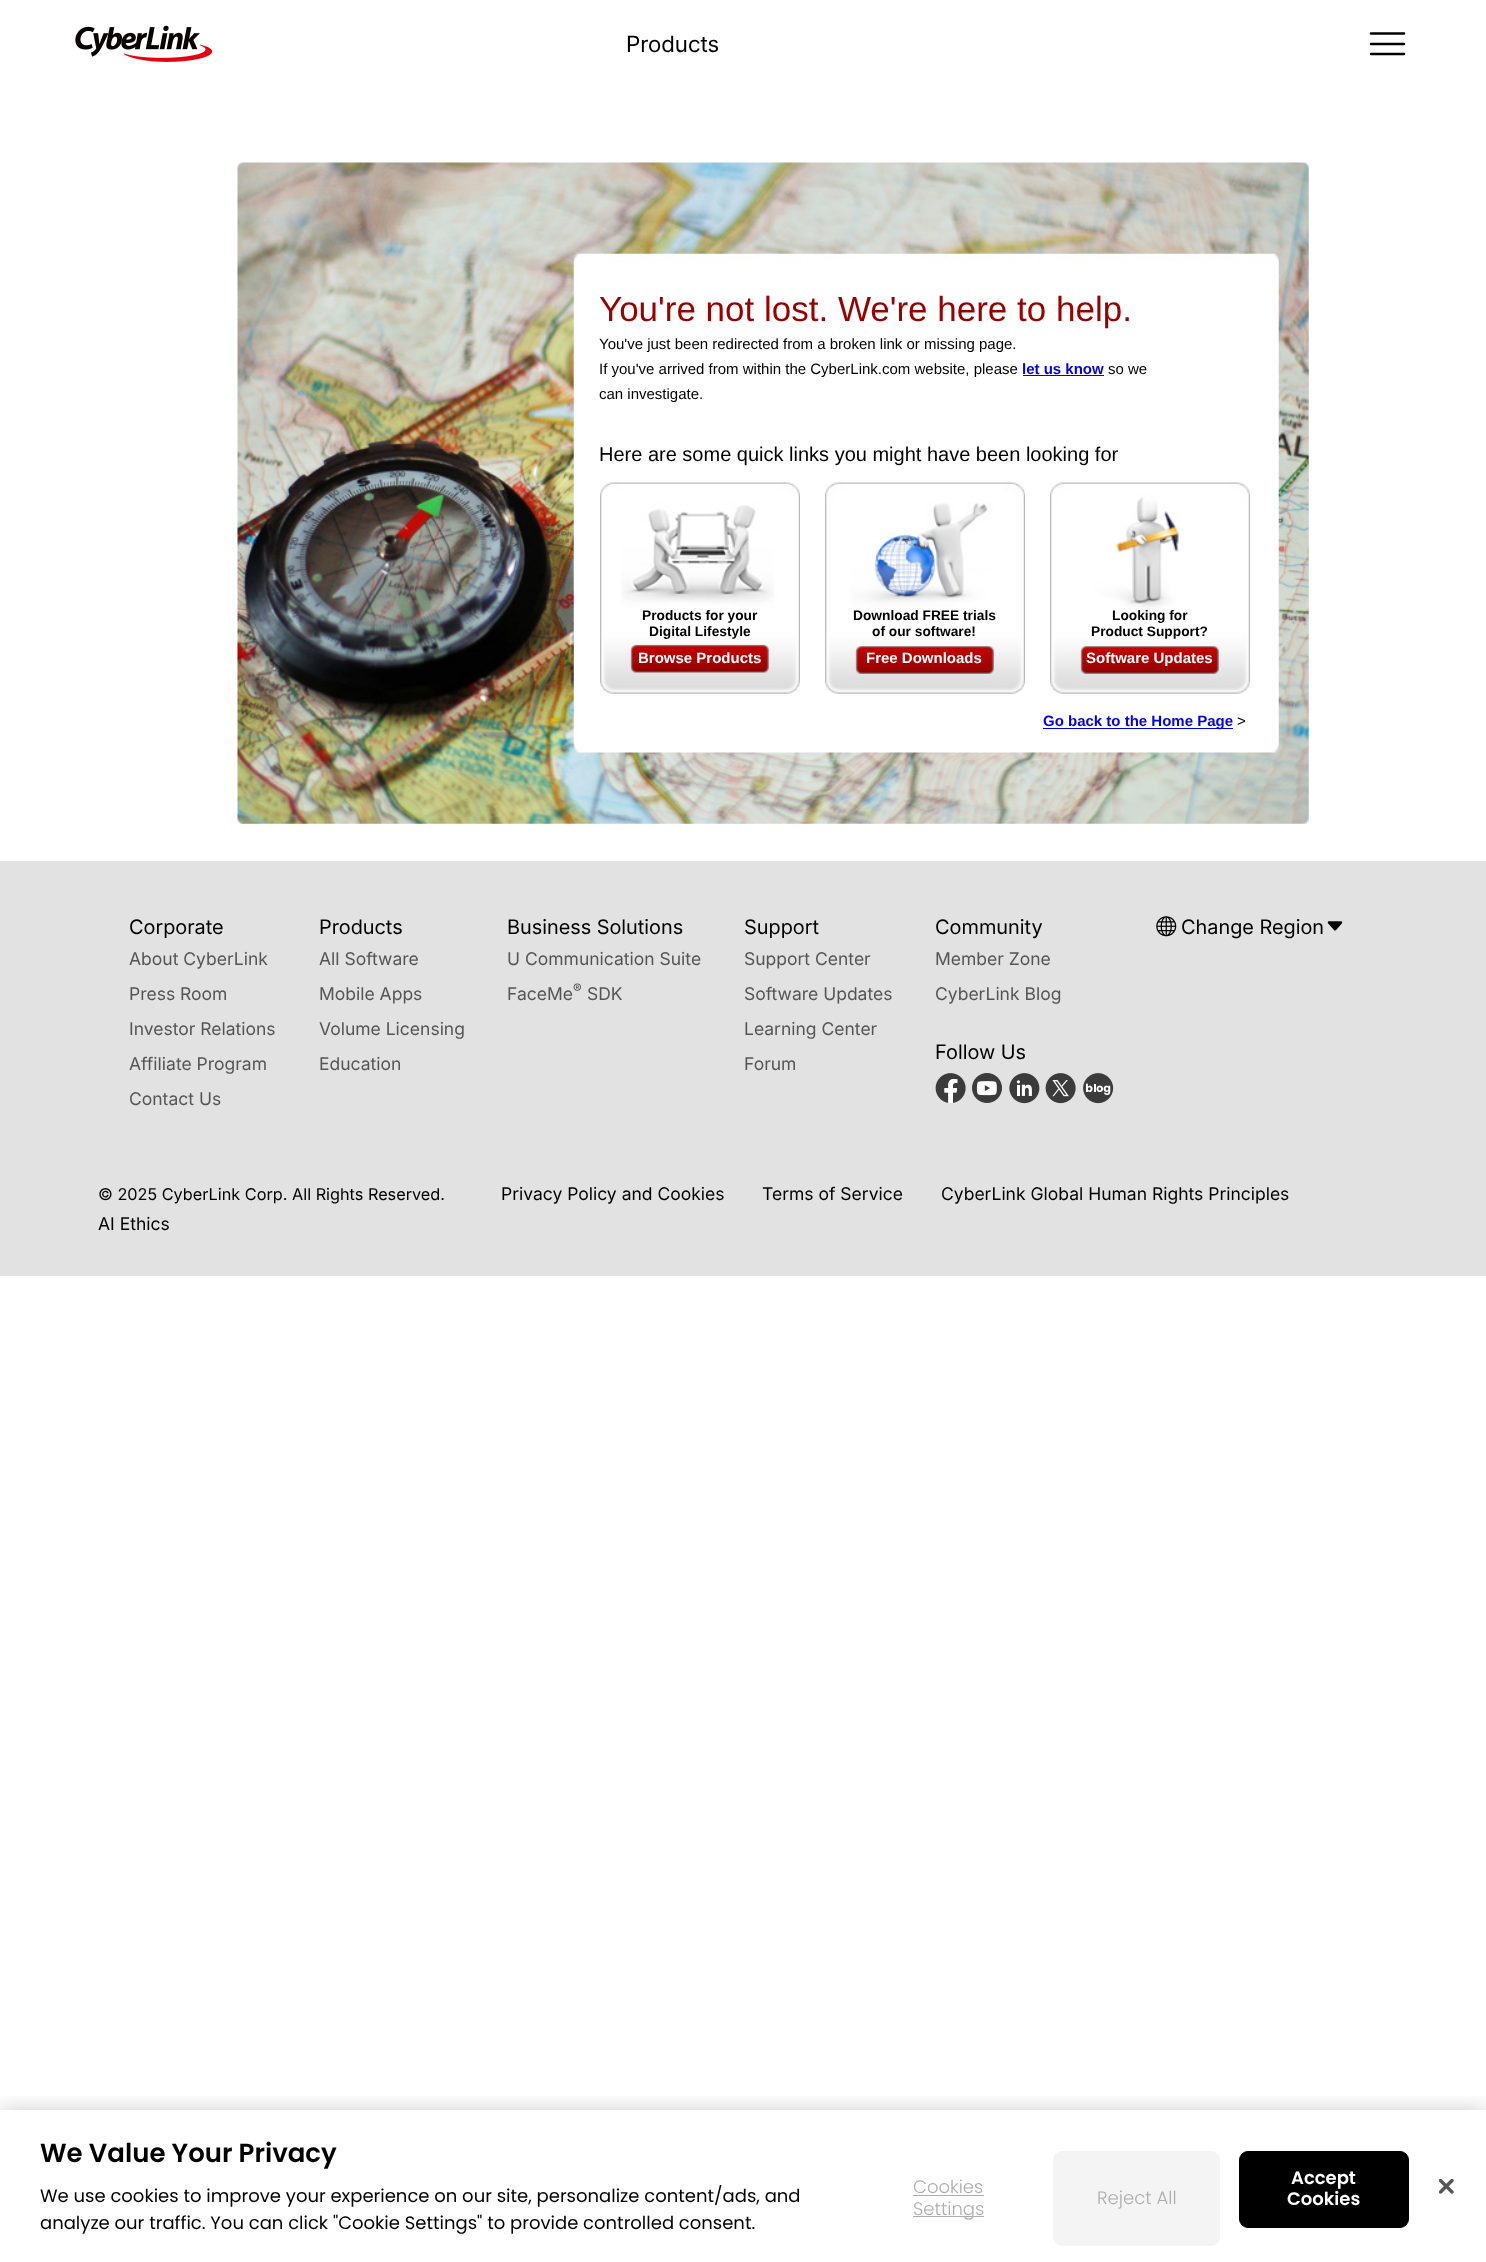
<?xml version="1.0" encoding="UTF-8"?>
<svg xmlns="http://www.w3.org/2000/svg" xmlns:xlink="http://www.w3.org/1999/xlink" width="1486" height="2262">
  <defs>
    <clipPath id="clip1"><rect x="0" y="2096" width="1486" height="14" /></clipPath>
  </defs>
  <rect width="100%" height="100%" fill="#ffffff" />
  <image x="75" y="25" width="138" height="37" xlink:href="image1.png" />
  <path d="M 1371 33.5 h 33 m -33 10.5 h 33 m -33 10 h 33" fill="none" stroke="#000000" stroke-width="2.5" stroke-linecap="round" />
  <image x="237" y="162" width="1072" height="662" xlink:href="image2.png" />
  <rect x="1023" y="375" width="81" height="1" fill="#0000ee" />
  <image x="600" y="482" width="200" height="212" xlink:href="image3.png" />
  <image x="825" y="482" width="200" height="212" xlink:href="image4.png" />
  <image x="1050" y="482" width="200" height="212" xlink:href="image5.png" />
  <rect x="1043" y="728" width="190" height="1" fill="#0000ee" />
  <rect y="861" width="1486" height="415" fill="#e2e2e2" />
  <image x="935" y="1073" width="31" height="30" xlink:href="image6.png" />
  <image x="972" y="1073" width="30" height="30" xlink:href="image7.png" />
  <image x="1009" y="1073" width="31" height="31" xlink:href="image8.png" />
  <image x="1045" y="1073" width="31" height="31" xlink:href="image9.png" />
  <image x="1083" y="1073" width="31" height="31" xlink:href="image10.png" />
  <image x="1156" y="916" width="21" height="21" xlink:href="image11.png" />
  <image x="1327" y="921" width="16" height="10" xlink:href="image12.png" />
  <g clip-path="url(#clip1)">
    <rect y="2110" width="1486" height="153" fill="#000000" fill-opacity="0.2" filter="blur(11px)" />
  </g>
  <rect x="913" y="2195" width="71" height="1" fill="#adadad" />
  <rect x="913" y="2216" width="71" height="1" fill="#adadad" />
  <rect x="1053" y="2151" width="167" height="95" rx="9" fill="#f4f4f4" />
  <rect x="1239.5" y="2151.5" width="169" height="76" rx="8.5" fill="#000000" stroke="#000000" />
  <image x="1439" y="2179" width="15" height="15" xlink:href="image13.png" />
  <text x="626" y="52" style="font-family: 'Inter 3'; font-size: 22.5px; fill: #000000">Products</text>
  <text x="599" y="321" style="font-family: Liberation Sans; font-size: 35px; fill: #990000">You're not lost. We're here to help.</text>
  <text x="599" y="349" style="font-family: Liberation Sans; font-size: 15px; fill: #000000">You've just been redirected from a broken link or missing page.</text>
  <text x="599" y="374" style="font-family: Liberation Sans; font-size: 15px; fill: #000000">If you've arrived from within the CyberLink.com website, please</text>
  <text x="1022" y="374" style="font-family: Liberation Sans; font-size: 15px; font-weight: bold; fill: #0000ee">let us know</text>
  <text x="1108" y="374" style="font-family: Liberation Sans; font-size: 15px; fill: #000000">so we</text>
  <text x="599" y="399" style="font-family: Liberation Sans; font-size: 15px; fill: #000000">can investigate.</text>
  <text x="599" y="461" style="font-family: Liberation Sans; font-size: 20px; fill: #000000">Here are some quick links you might have been looking for</text>
  <text x="642" y="620" style="font-family: Liberation Sans; font-size: 13.75px; font-weight: bold; fill: #000000">Products for your</text>
  <text x="649" y="636" style="font-family: Liberation Sans; font-size: 13.75px; font-weight: bold; fill: #000000">Digital Lifestyle</text>
  <text x="638" y="663" style="font-family: Liberation Sans; font-size: 15px; font-weight: bold; fill: #ffffff">Browse Products</text>
  <text x="853" y="620" style="font-family: Liberation Sans; font-size: 13.75px; font-weight: bold; fill: #000000">Download FREE trials</text>
  <text x="872" y="636" style="font-family: Liberation Sans; font-size: 13.75px; font-weight: bold; fill: #000000">of our software!</text>
  <text x="866" y="663" style="font-family: Liberation Sans; font-size: 15px; font-weight: bold; fill: #ffffff">Free Downloads</text>
  <text x="1112" y="620" style="font-family: Liberation Sans; font-size: 13.75px; font-weight: bold; fill: #000000">Looking for</text>
  <text x="1091" y="636" style="font-family: Liberation Sans; font-size: 13.75px; font-weight: bold; fill: #000000">Product Support?</text>
  <text x="1086" y="663" style="font-family: Liberation Sans; font-size: 15px; font-weight: bold; fill: #ffffff">Software Updates</text>
  <text x="1043" y="726" style="font-family: Liberation Sans; font-size: 15px; font-weight: bold; fill: #0000ee">Go back to the Home Page</text>
  <text x="1237" y="726" style="font-family: Liberation Sans; font-size: 15px; fill: #000000">&gt;</text>
  <text x="129" y="934" style="font-family: 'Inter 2'; font-size: 20px; fill: #000000">Corporate</text>
  <text x="129" y="965" style="font-family: Inter; font-size: 17.5px; fill: #555555">About CyberLink</text>
  <text x="129" y="1000" style="font-family: Inter; font-size: 17.5px; fill: #555555">Press Room</text>
  <text x="129" y="1035" style="font-family: Inter; font-size: 17.5px; fill: #555555">Investor Relations</text>
  <text x="129" y="1070" style="font-family: Inter; font-size: 17.5px; fill: #555555">Affiliate Program</text>
  <text x="129" y="1105" style="font-family: Inter; font-size: 17.5px; fill: #555555">Contact Us</text>
  <text x="319" y="934" style="font-family: 'Inter 2'; font-size: 20px; fill: #000000">Products</text>
  <text x="319" y="965" style="font-family: Inter; font-size: 17.5px; fill: #555555">All Software</text>
  <text x="319" y="1000" style="font-family: Inter; font-size: 17.5px; fill: #555555">Mobile Apps</text>
  <text x="319" y="1035" style="font-family: Inter; font-size: 17.5px; fill: #555555">Volume Licensing</text>
  <text x="319" y="1070" style="font-family: Inter; font-size: 17.5px; fill: #555555">Education</text>
  <text x="507" y="934" style="font-family: 'Inter 2'; font-size: 20px; fill: #000000">Business Solutions</text>
  <text x="507" y="965" style="font-family: Inter; font-size: 17.5px; fill: #555555">U Communication Suite</text>
  <text x="507" y="1000" style="font-family: Inter; font-size: 17.5px; fill: #555555">FaceMe</text>
  <text x="573" y="993" style="font-family: Inter; font-size: 13px; fill: #555555">®</text>
  <text x="587" y="1000" style="font-family: Inter; font-size: 17.5px; fill: #555555">SDK</text>
  <text x="744" y="934" style="font-family: 'Inter 2'; font-size: 20px; fill: #000000">Support</text>
  <text x="744" y="965" style="font-family: Inter; font-size: 17.5px; fill: #555555">Support Center</text>
  <text x="744" y="1000" style="font-family: Inter; font-size: 17.5px; fill: #555555">Software Updates</text>
  <text x="744" y="1035" style="font-family: Inter; font-size: 17.5px; fill: #555555">Learning Center</text>
  <text x="744" y="1070" style="font-family: Inter; font-size: 17.5px; fill: #555555">Forum</text>
  <text x="935" y="934" style="font-family: 'Inter 2'; font-size: 20px; fill: #000000">Community</text>
  <text x="935" y="965" style="font-family: Inter; font-size: 17.5px; fill: #555555">Member Zone</text>
  <text x="935" y="1000" style="font-family: Inter; font-size: 17.5px; fill: #555555">CyberLink Blog</text>
  <text x="935" y="1059" style="font-family: 'Inter 2'; font-size: 20px; fill: #000000">Follow Us</text>
  <text x="1181" y="934" style="font-family: 'Inter 2'; font-size: 20px; fill: #000000">Change Region</text>
  <text x="501" y="1200" style="font-family: Inter; font-size: 17.5px; fill: #000000">Privacy Policy and Cookies</text>
  <text x="762" y="1200" style="font-family: Inter; font-size: 17.5px; fill: #000000">Terms of Service</text>
  <text x="941" y="1200" style="font-family: Inter; font-size: 17.5px; fill: #000000">CyberLink Global Human Rights Principles</text>
  <text x="98" y="1230" style="font-family: Inter; font-size: 17.5px; fill: #000000">AI Ethics</text>
  <text x="98" y="1200" style="font-family: Inter; font-size: 16.25px; fill: #000000">© 2025 CyberLink Corp. All Rights Reserved.</text>
  <text x="40" y="2162" style="font-family: Poppins; font-size: 26px; font-weight: 600; fill: #000000">We Value Your Privacy</text>
  <text x="40" y="2202" style="font-family: Poppins; font-size: 18px; fill: #000000">We use cookies to improve your experience on our site, personalize content/ads, and</text>
  <text x="40" y="2229" style="font-family: Poppins; font-size: 18px; fill: #000000">analyze our traffic. You can click "Cookie Settings" to provide controlled consent.</text>
  <text x="913" y="2193" style="font-family: Poppins; font-size: 18px; font-weight: 300; fill: #adadad">Cookies</text>
  <text x="913" y="2215" style="font-family: Poppins; font-size: 18px; font-weight: 300; fill: #adadad">Settings</text>
  <text x="1097" y="2204" style="font-family: Poppins; font-size: 18px; font-weight: 300; fill: #adadad">Reject All</text>
  <text x="1291" y="2184" style="font-family: Poppins; font-size: 18px; font-weight: 600; fill: #ffffff">Accept</text>
  <text x="1287" y="2205" style="font-family: Poppins; font-size: 18px; font-weight: 600; fill: #ffffff">Cookies</text>
</svg>
